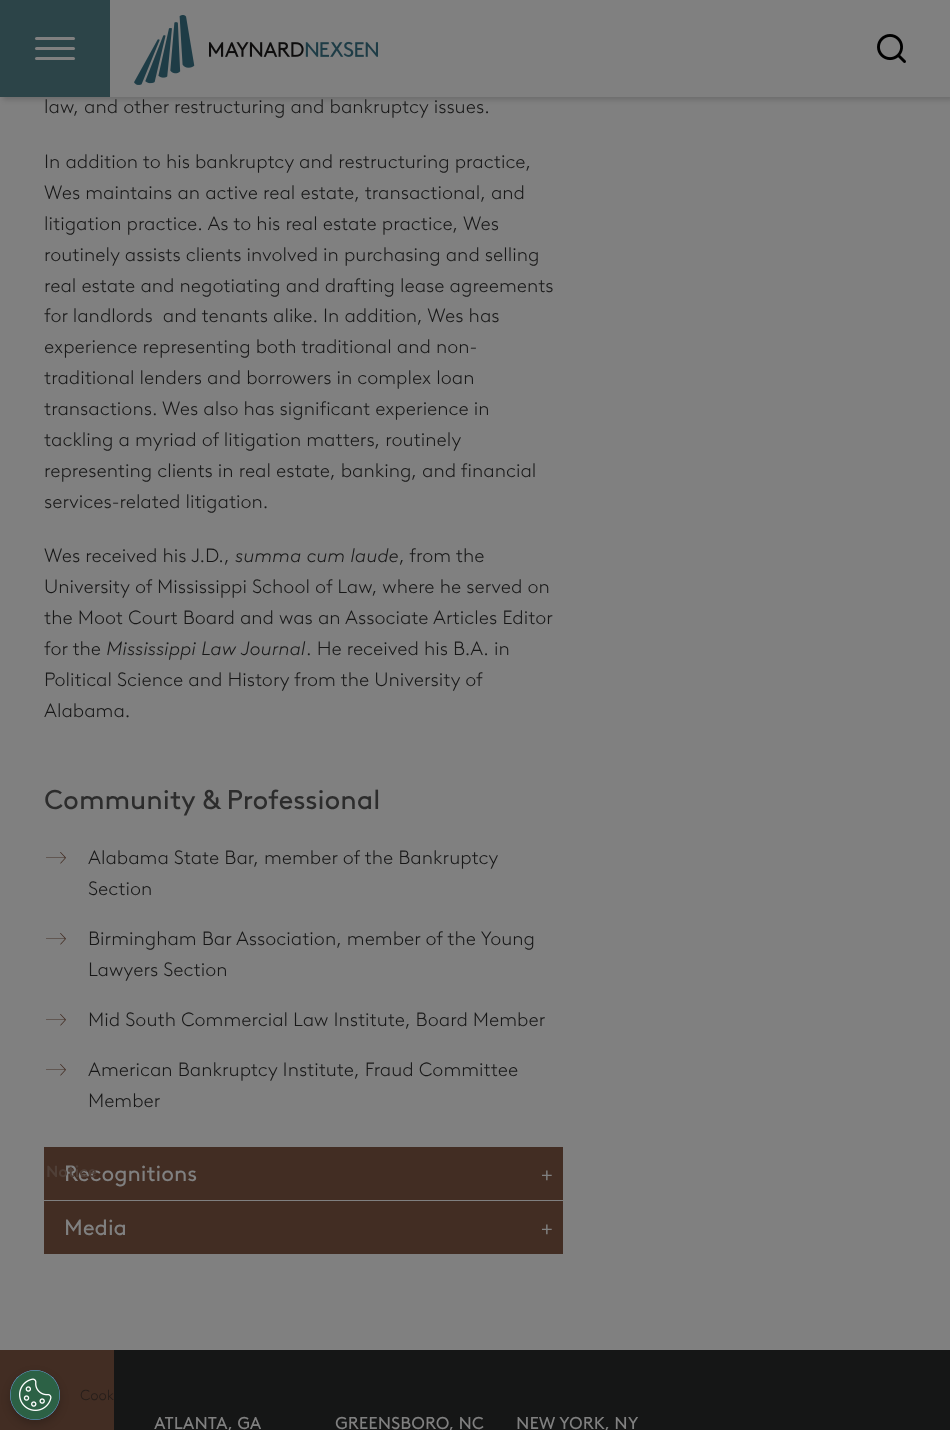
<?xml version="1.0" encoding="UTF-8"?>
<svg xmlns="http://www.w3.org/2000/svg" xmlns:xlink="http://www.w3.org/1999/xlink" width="950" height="1430">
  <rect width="100%" height="100%" fill="#808080" />
  <rect x="3" y="3" width="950" height="97" fill="#000000" fill-opacity="0.15" filter="blur(2.5px)" />
  <rect x="110" width="840" height="97" fill="#808080" />
  <rect width="110" height="97" fill="#2c4448" />
  <rect x="35" y="37" width="40" height="3" rx="1.5" fill="#808080" />
  <rect x="35" y="47" width="40" height="3" rx="1.5" fill="#808080" />
  <rect x="35" y="57" width="40" height="3" rx="1.5" fill="#808080" />
  <image x="134" y="15" width="61" height="70" xlink:href="image1.png" />
  <image x="209" y="41" width="169" height="16" xlink:href="image2.png" />
  <image x="877" y="34" width="29" height="29" xlink:href="image3.png" />
  <image x="46" y="852" width="20" height="12" xlink:href="image4.png" />
  <image x="46" y="933" width="20" height="12" xlink:href="image4.png" />
  <image x="46" y="1014" width="20" height="12" xlink:href="image4.png" />
  <image x="46" y="1064" width="20" height="12" xlink:href="image4.png" />
  <rect x="44" y="1147" width="519" height="53" fill="#422d23" />
  <rect x="44" y="1201" width="519" height="53" fill="#422d23" />
  <rect y="1350" width="114" height="80" fill="#422d23" />
  <rect x="10" y="1374" width="50" height="50" rx="25" fill="#000000" fill-opacity="0.2" filter="blur(4px)" />
  <circle cx="35" cy="1395" r="25" fill="#6aaae4" />
  <image x="10" y="1370" width="50" height="50" xlink:href="image5.png" />
  <rect x="114" y="1350" width="836" height="80" fill="#151616" />
  <text x="44" y="113" style="font-family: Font; font-size: 19.25px; font-weight: 300; fill: #171717">law, and other restructuring and bankruptcy issues.</text>
  <text x="44" y="168" style="font-family: Font; font-size: 19.25px; font-weight: 300; fill: #171717">In addition to his bankruptcy and restructuring practice,</text>
  <text x="44" y="199" style="font-family: Font; font-size: 19.25px; font-weight: 300; fill: #171717">Wes maintains an active real estate, transactional, and</text>
  <text x="44" y="230" style="font-family: Font; font-size: 19.25px; font-weight: 300; fill: #171717">litigation practice. As to his real estate practice, Wes</text>
  <text x="44" y="261" style="font-family: Font; font-size: 19.25px; font-weight: 300; fill: #171717">routinely assists clients involved in purchasing and selling</text>
  <text x="44" y="292" style="font-family: Font; font-size: 19.25px; font-weight: 300; fill: #171717">real estate and negotiating and drafting lease agreements</text>
  <text x="44" y="322" style="font-family: Font; font-size: 19.25px; font-weight: 300; fill: #171717" xml:space="preserve">for landlords  and tenants alike. In addition, Wes has</text>
  <text x="44" y="353" style="font-family: Font; font-size: 19.25px; font-weight: 300; fill: #171717">experience representing both traditional and non-</text>
  <text x="44" y="384" style="font-family: Font; font-size: 19.25px; font-weight: 300; fill: #171717">traditional lenders and borrowers in complex loan</text>
  <text x="44" y="415" style="font-family: Font; font-size: 19.25px; font-weight: 300; fill: #171717">transactions. Wes also has significant experience in</text>
  <text x="44" y="446" style="font-family: Font; font-size: 19.25px; font-weight: 300; fill: #171717">tackling a myriad of litigation matters, routinely</text>
  <text x="44" y="477" style="font-family: Font; font-size: 19.25px; font-weight: 300; fill: #171717">representing clients in real estate, banking, and financial</text>
  <text x="44" y="508" style="font-family: Font; font-size: 19.25px; font-weight: 300; fill: #171717">services-related litigation.</text>
  <text x="44" y="562" style="font-family: Font; font-size: 19.25px; font-weight: 300; fill: #171717">Wes received his J.D.,</text>
  <text x="235" y="562" style="font-family: Font; font-size: 19.25px; font-weight: 300; font-style: italic; fill: #171717">summa cum laude</text>
  <text x="399" y="562" style="font-family: Font; font-size: 19.25px; font-weight: 300; fill: #171717">, from the</text>
  <text x="44" y="593" style="font-family: Font; font-size: 19.25px; font-weight: 300; fill: #171717">University of Mississippi School of Law, where he served on</text>
  <text x="44" y="624" style="font-family: Font; font-size: 19.25px; font-weight: 300; fill: #171717">the Moot Court Board and was an Associate Articles Editor</text>
  <text x="44" y="655" style="font-family: Font; font-size: 19.25px; font-weight: 300; fill: #171717">for the</text>
  <text x="106" y="655" style="font-family: Font; font-size: 19.25px; font-weight: 300; font-style: italic; fill: #171717">Mississippi Law Journal</text>
  <text x="306" y="655" style="font-family: Font; font-size: 19.25px; font-weight: 300; fill: #171717">. He received his B.A. in</text>
  <text x="44" y="686" style="font-family: Font; font-size: 19.25px; font-weight: 300; fill: #171717">Political Science and History from the University of</text>
  <text x="44" y="717" style="font-family: Font; font-size: 19.25px; font-weight: 300; fill: #171717">Alabama.</text>
  <text x="44" y="809" style="font-family: Font; font-size: 27.25px; fill: #2c2c2c">Community &amp; Professional</text>
  <text x="88" y="864" style="font-family: Font; font-size: 19.25px; font-weight: 300; fill: #171717">Alabama State Bar, member of the Bankruptcy</text>
  <text x="88" y="895" style="font-family: Font; font-size: 19.25px; font-weight: 300; fill: #171717">Section</text>
  <text x="88" y="945" style="font-family: Font; font-size: 19.25px; font-weight: 300; fill: #171717">Birmingham Bar Association, member of the Young</text>
  <text x="88" y="976" style="font-family: Font; font-size: 19.25px; font-weight: 300; fill: #171717">Lawyers Section</text>
  <text x="88" y="1026" style="font-family: Font; font-size: 19.25px; font-weight: 300; fill: #171717">Mid South Commercial Law Institute, Board Member</text>
  <text x="88" y="1076" style="font-family: Font; font-size: 19.25px; font-weight: 300; fill: #171717">American Bankruptcy Institute, Fraud Committee</text>
  <text x="88" y="1107" style="font-family: Font; font-size: 19.25px; font-weight: 300; fill: #171717">Member</text>
  <text x="64" y="1181" style="font-family: Font; font-size: 22px; fill: #808080">Recognitions</text>
  <text x="541" y="1182" style="font-family: Liberation Sans; font-size: 20px; fill: #808080">+</text>
  <text x="64" y="1235" style="font-family: Font; font-size: 22px; fill: #808080">Media</text>
  <text x="541" y="1236" style="font-family: Liberation Sans; font-size: 20px; fill: #808080">+</text>
  <text x="46" y="1177" style="font-family: Font; font-size: 16px; font-weight: bold; fill: #4f3f37">Notice</text>
  <text x="80" y="1400" style="font-family: Font; font-size: 14.5px; font-weight: 300; fill: #241d1a">Cook</text>
  <text x="154" y="1429" style="font-family: Font; font-size: 17.25px; fill: #808080">ATLANTA, GA</text>
  <text x="335" y="1429" style="font-family: Font; font-size: 17.25px; fill: #808080">GREENSBORO, NC</text>
  <text x="516" y="1429" style="font-family: Font; font-size: 17.25px; fill: #808080">NEW YORK, NY</text>
</svg>
